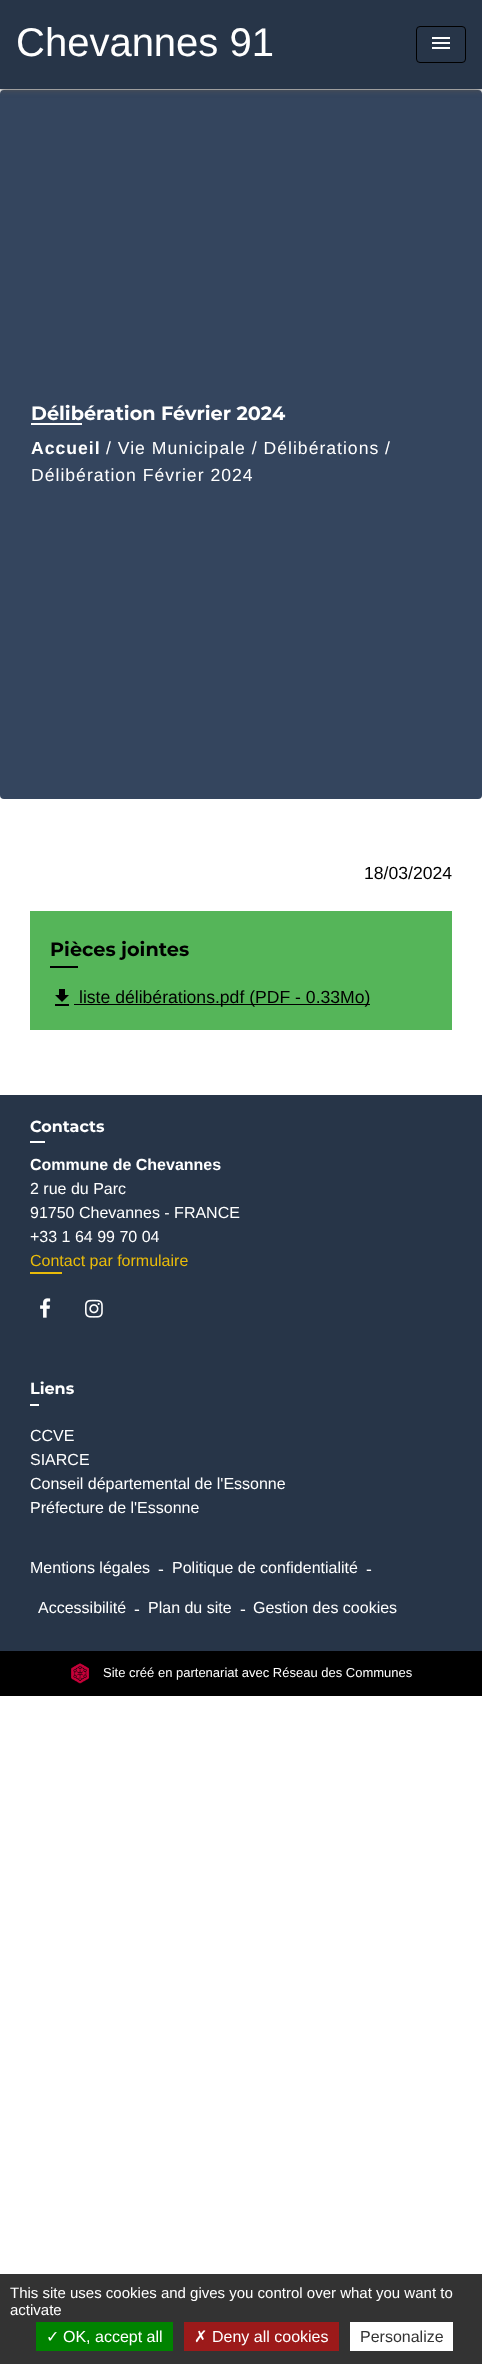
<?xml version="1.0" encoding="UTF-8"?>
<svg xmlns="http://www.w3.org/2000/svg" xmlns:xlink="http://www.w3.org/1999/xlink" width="482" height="2364">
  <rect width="100%" height="100%" fill="#ffffff" />
  <rect y="90" width="482" height="709" rx="4" fill="#34455e" />
  <rect y="1" width="482" height="89" fill="#535353" filter="blur(3px)" />
  <rect width="482" height="89" fill="#273548" />
  <rect x="416.5" y="26.5" width="49" height="36" rx="3.5" fill="none" stroke="#000000" />
  <image x="432" y="37" width="18" height="12" xlink:href="image1.png" />
  <rect x="31" y="423" width="51" height="2" fill="#ffffff" />
  <rect x="30" y="911" width="422" height="119" fill="#55b559" />
  <rect x="50" y="966" width="28" height="2" fill="#000000" />
  <image x="55" y="989" width="14" height="17" xlink:href="image2.png" />
  <rect x="74" y="1004" width="296" height="1" fill="#000000" />
  <rect y="1095" width="482" height="556" fill="#273548" />
  <rect x="30" y="1141" width="15" height="2" fill="#ffffff" />
  <rect x="30" y="1272" width="32" height="2" fill="#e9bb0a" />
  <image x="40" y="1298" width="11" height="20" xlink:href="image3.png" />
  <image x="85" y="1299" width="18" height="19" xlink:href="image4.png" />
  <rect x="30" y="1404" width="9" height="2" fill="#ffffff" />
  <rect y="1651" width="482" height="45" fill="#000000" />
  <image x="71" y="1663" width="19" height="21" xlink:href="image5.png" />
  <rect y="2274" width="482" height="90" fill="#333333" />
  <rect x="36" y="2322" width="137" height="29" fill="#008300" />
  <rect x="184" y="2322" width="155" height="29" fill="#9c1a1a" />
  <rect x="350" y="2322" width="103" height="29" fill="#ffffff" />
  <text x="16" y="56" style="font-family: Liberation Sans; font-size: 40px; fill: #ffffff">Chevannes 91</text>
  <text x="31" y="420" style="font-family: Montserrat; font-size: 19.25px; font-weight: bold; fill: #ffffff">Délibération Février 2024</text>
  <text x="31" y="454" style="font-family: Liberation Sans; font-size: 17.6px; font-weight: bold; letter-spacing: 1px; fill: #ffffff">Accueil</text>
  <text x="106" y="454" style="font-family: Liberation Sans; font-size: 17.6px; letter-spacing: 1px; fill: #ffffff">/ Vie Municipale / Délibérations /</text>
  <text x="31" y="481" style="font-family: Liberation Sans; font-size: 17.6px; letter-spacing: 1px; fill: #ffffff">Délibération Février 2024</text>
  <text x="364" y="879" style="font-family: Liberation Sans; font-size: 17.6px; fill: #000000">18/03/2024</text>
  <text x="50" y="956" style="font-family: Montserrat; font-size: 19.25px; font-weight: bold; fill: #000000">Pièces jointes</text>
  <text x="79" y="1003" style="font-family: Liberation Sans; font-size: 17.6px; fill: #000000">liste délibérations.pdf (PDF - 0.33Mo)</text>
  <text x="30" y="1132" style="font-family: Montserrat; font-size: 16px; font-weight: bold; fill: #ffffff">Contacts</text>
  <text x="30" y="1170" style="font-family: Liberation Sans; font-size: 16px; font-weight: bold; fill: #ffffff">Commune de Chevannes</text>
  <text x="30" y="1194" style="font-family: Liberation Sans; font-size: 16px; fill: #ffffff">2 rue du Parc</text>
  <text x="30" y="1218" style="font-family: Liberation Sans; font-size: 16px; fill: #ffffff">91750 Chevannes - FRANCE</text>
  <text x="30" y="1242" style="font-family: Liberation Sans; font-size: 16px; fill: #ffffff">+33 1 64 99 70 04</text>
  <text x="30" y="1266" style="font-family: Liberation Sans; font-size: 16px; fill: #e9bb0a">Contact par formulaire</text>
  <text x="30" y="1394" style="font-family: Montserrat; font-size: 16px; font-weight: bold; fill: #ffffff">Liens</text>
  <text x="30" y="1441" style="font-family: Liberation Sans; font-size: 16px; fill: #ffffff">CCVE</text>
  <text x="30" y="1465" style="font-family: Liberation Sans; font-size: 16px; fill: #ffffff">SIARCE</text>
  <text x="30" y="1489" style="font-family: Liberation Sans; font-size: 16px; fill: #ffffff">Conseil départemental de l'Essonne</text>
  <text x="30" y="1513" style="font-family: Liberation Sans; font-size: 16px; fill: #ffffff">Préfecture de l'Essonne</text>
  <text x="30" y="1573" style="font-family: Liberation Sans; font-size: 16px; fill: #ffffff">Mentions légales</text>
  <text x="158" y="1575" style="font-family: Liberation Sans; font-size: 17.6px; fill: #ffffff">-</text>
  <text x="172" y="1573" style="font-family: Liberation Sans; font-size: 16px; fill: #ffffff">Politique de confidentialité</text>
  <text x="366" y="1575" style="font-family: Liberation Sans; font-size: 17.6px; fill: #ffffff">-</text>
  <text x="38" y="1613" style="font-family: Liberation Sans; font-size: 16px; fill: #ffffff">Accessibilité</text>
  <text x="134" y="1615" style="font-family: Liberation Sans; font-size: 17.6px; fill: #ffffff">-</text>
  <text x="148" y="1613" style="font-family: Liberation Sans; font-size: 16px; fill: #ffffff">Plan du site</text>
  <text x="240" y="1615" style="font-family: Liberation Sans; font-size: 17.6px; fill: #ffffff">-</text>
  <text x="253" y="1613" style="font-family: Liberation Sans; font-size: 16px; fill: #ffffff">Gestion des cookies</text>
  <text x="103" y="1677" style="font-family: Liberation Sans; font-size: 13px; fill: #ffffff">Site créé en partenariat avec Réseau des Communes</text>
  <text x="10" y="2298" style="font-family: Liberation Sans; font-size: 15px; fill: #ffffff">This site uses cookies and gives you control over what you want to</text>
  <text x="10" y="2315" style="font-family: Liberation Sans; font-size: 15px; fill: #ffffff">activate</text>
  <text x="46" y="2342" style="font-family: DejaVu Sans; font-size: 16px; fill: #ffffff">✓</text>
  <text x="63" y="2342" style="font-family: Liberation Sans; font-size: 16px; fill: #ffffff">OK, accept all</text>
  <text x="194" y="2342" style="font-family: DejaVu Sans; font-size: 16px; fill: #ffffff">✗</text>
  <text x="212" y="2342" style="font-family: Liberation Sans; font-size: 16px; fill: #ffffff">Deny all cookies</text>
  <text x="360" y="2342" style="font-family: Liberation Sans; font-size: 16px; fill: #333333">Personalize</text>
</svg>
